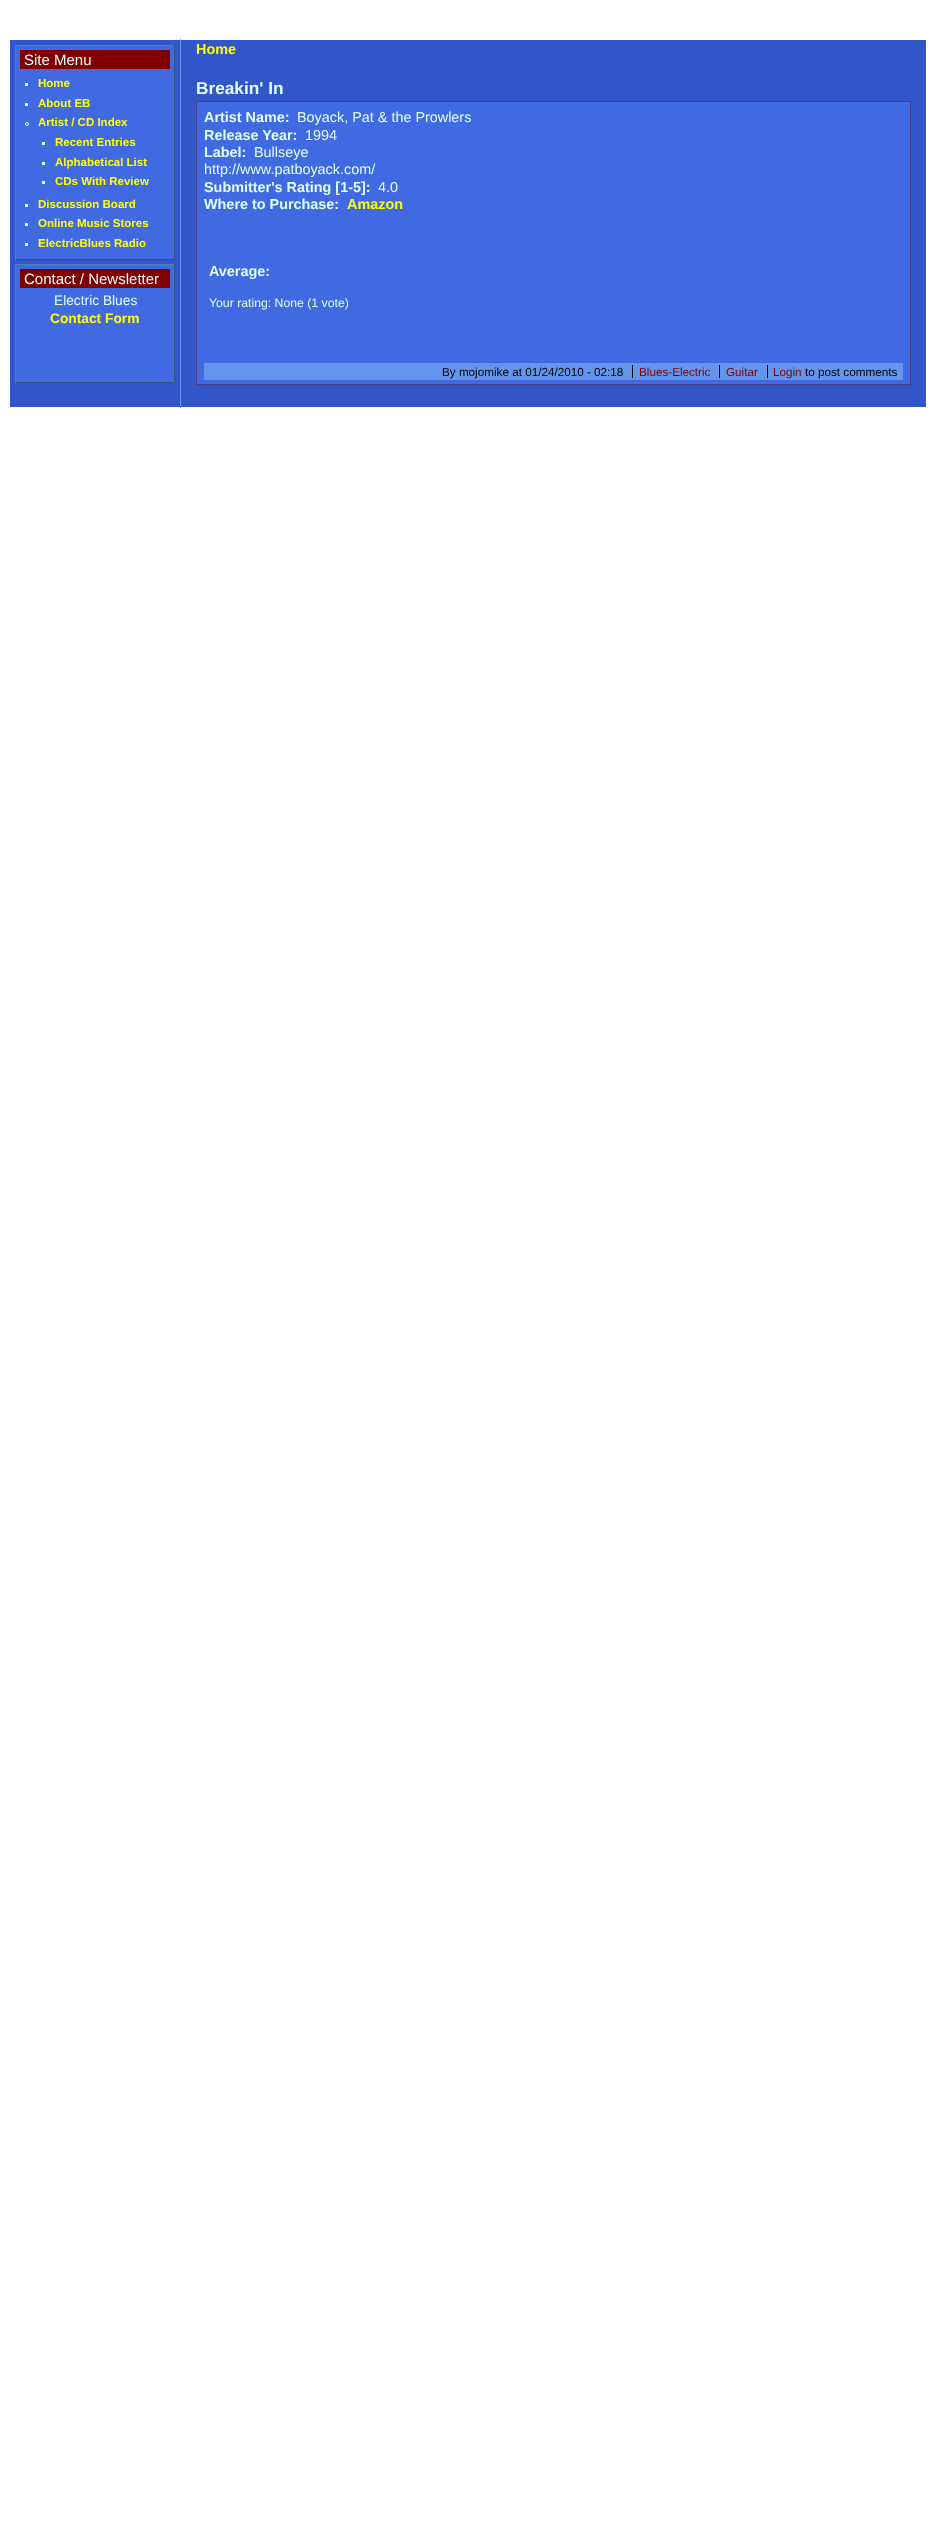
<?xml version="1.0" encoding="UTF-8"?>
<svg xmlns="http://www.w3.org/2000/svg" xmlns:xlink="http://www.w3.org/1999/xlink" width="936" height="2530">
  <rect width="100%" height="100%" fill="#ffffff" />
  <rect x="10" y="40" width="916" height="367" fill="#3255c8" />
  <rect x="180" y="39" width="1" height="369" fill="#6495ed" />
  <rect x="16" y="46" width="158" height="213" fill="#4169e1" />
  <rect x="15" y="45" width="160" height="1" fill="#4682b4" />
  <rect x="174" y="45" width="1" height="215" fill="#2f5778" />
  <rect x="15" y="259" width="160" height="1" fill="#2f5778" />
  <rect x="15" y="45" width="1" height="215" fill="#4682b4" />
  <rect x="20" y="50" width="150" height="19" fill="#800000" />
  <rect x="25" y="83" width="3" height="3" fill="#e0ffff" />
  <rect x="25" y="103" width="3" height="3" fill="#e0ffff" />
  <circle cx="27" cy="124" r="1.5" fill="none" stroke="#e0ffff" />
  <rect x="42" y="142" width="3" height="3" fill="#e0ffff" />
  <rect x="42" y="162" width="3" height="3" fill="#e0ffff" />
  <rect x="42" y="181" width="3" height="3" fill="#e0ffff" />
  <rect x="25" y="204" width="3" height="3" fill="#e0ffff" />
  <rect x="25" y="223" width="3" height="3" fill="#e0ffff" />
  <rect x="25" y="243" width="3" height="3" fill="#e0ffff" />
  <rect x="16" y="265" width="158" height="117" fill="#4169e1" />
  <rect x="15" y="264" width="160" height="1" fill="#4682b4" />
  <rect x="174" y="264" width="1" height="119" fill="#2f5778" />
  <rect x="15" y="382" width="160" height="1" fill="#2f5778" />
  <rect x="15" y="264" width="1" height="119" fill="#4682b4" />
  <rect x="20" y="269" width="150" height="19" fill="#800000" />
  <rect x="196.5" y="101.5" width="714" height="283" fill="#4169e1" stroke="#483d8b" />
  <rect x="204" y="363" width="699" height="17" fill="#6495ed" />
  <rect x="632" y="365" width="1" height="13" fill="#000000" />
  <rect x="719" y="365" width="1" height="13" fill="#000000" />
  <rect x="767" y="365" width="1" height="13" fill="#000000" />
  <text x="24" y="65" style="font-family: Liberation Sans; font-size: 15px; fill: #e0ffff">Site Menu</text>
  <text x="38" y="87" style="font-family: Liberation Sans; font-size: 11.5px; font-weight: bold; fill: #ffff00">Home</text>
  <text x="38" y="107" style="font-family: Liberation Sans; font-size: 11.5px; font-weight: bold; fill: #ffff00">About EB</text>
  <text x="38" y="126" style="font-family: Liberation Sans; font-size: 11.5px; font-weight: bold; fill: #ffff00">Artist / CD Index</text>
  <text x="55" y="146" style="font-family: Liberation Sans; font-size: 11.5px; font-weight: bold; fill: #ffff00">Recent Entries</text>
  <text x="55" y="166" style="font-family: Liberation Sans; font-size: 11.5px; font-weight: bold; fill: #ffff00">Alphabetical List</text>
  <text x="55" y="185" style="font-family: Liberation Sans; font-size: 11.5px; font-weight: bold; fill: #ffff00">CDs With Review</text>
  <text x="38" y="208" style="font-family: Liberation Sans; font-size: 11.5px; font-weight: bold; fill: #ffff00">Discussion Board</text>
  <text x="38" y="227" style="font-family: Liberation Sans; font-size: 11.5px; font-weight: bold; fill: #ffff00">Online Music Stores</text>
  <text x="38" y="247" style="font-family: Liberation Sans; font-size: 11.5px; font-weight: bold; fill: #ffff00">ElectricBlues Radio</text>
  <text x="24" y="284" style="font-family: Liberation Sans; font-size: 15px; fill: #e0ffff">Contact / Newsletter</text>
  <text x="54" y="305" style="font-family: Liberation Sans; font-size: 13.75px; fill: #e0ffff">Electric Blues</text>
  <text x="50" y="323" style="font-family: Liberation Sans; font-size: 13.75px; font-weight: bold; fill: #ffff00">Contact Form</text>
  <text x="196" y="54" style="font-family: Liberation Sans; font-size: 14.4px; font-weight: bold; fill: #ffff00">Home</text>
  <text x="196" y="94" style="font-family: Liberation Sans; font-size: 17.25px; font-weight: bold; fill: #e0ffff">Breakin' In</text>
  <text x="204" y="122" style="font-family: Liberation Sans; font-size: 14.4px; font-weight: bold; fill: #e0ffff">Artist Name:</text>
  <text x="297" y="122" style="font-family: Liberation Sans; font-size: 14.4px; fill: #e0ffff">Boyack, Pat &amp; the Prowlers</text>
  <text x="204" y="140" style="font-family: Liberation Sans; font-size: 14.4px; font-weight: bold; fill: #e0ffff">Release Year:</text>
  <text x="305" y="140" style="font-family: Liberation Sans; font-size: 14.4px; fill: #e0ffff">1994</text>
  <text x="204" y="157" style="font-family: Liberation Sans; font-size: 14.4px; font-weight: bold; fill: #e0ffff">Label:</text>
  <text x="254" y="157" style="font-family: Liberation Sans; font-size: 14.4px; fill: #e0ffff">Bullseye</text>
  <text x="204" y="174" style="font-family: Liberation Sans; font-size: 14.4px; fill: #e0ffff">http://www.patboyack.com/</text>
  <text x="204" y="192" style="font-family: Liberation Sans; font-size: 14.4px; font-weight: bold; fill: #e0ffff">Submitter's Rating [1-5]:</text>
  <text x="378" y="192" style="font-family: Liberation Sans; font-size: 14.4px; fill: #e0ffff">4.0</text>
  <text x="204" y="209" style="font-family: Liberation Sans; font-size: 14.4px; font-weight: bold; fill: #e0ffff">Where to Purchase:</text>
  <text x="347" y="209" style="font-family: Liberation Sans; font-size: 14.4px; font-weight: bold; fill: #ffff00">Amazon</text>
  <text x="209" y="276" style="font-family: Liberation Sans; font-size: 14.4px; font-weight: bold; fill: #e0ffff">Average:</text>
  <text x="209" y="307" style="font-family: Liberation Sans; font-size: 12.25px; fill: #e0ffff">Your rating: None (1 vote)</text>
  <text x="442" y="376" style="font-family: Liberation Sans; font-size: 11.7px; fill: #000000">By mojomike at 01/24/2010 - 02:18</text>
  <text x="639" y="376" style="font-family: Liberation Sans; font-size: 11.7px; fill: #800000">Blues-Electric</text>
  <text x="726" y="376" style="font-family: Liberation Sans; font-size: 11.7px; fill: #800000">Guitar</text>
  <text x="773" y="376" style="font-family: Liberation Sans; font-size: 11.7px; fill: #800000">Login</text>
  <text x="805" y="376" style="font-family: Liberation Sans; font-size: 11.7px; fill: #000000">to post comments</text>
</svg>
